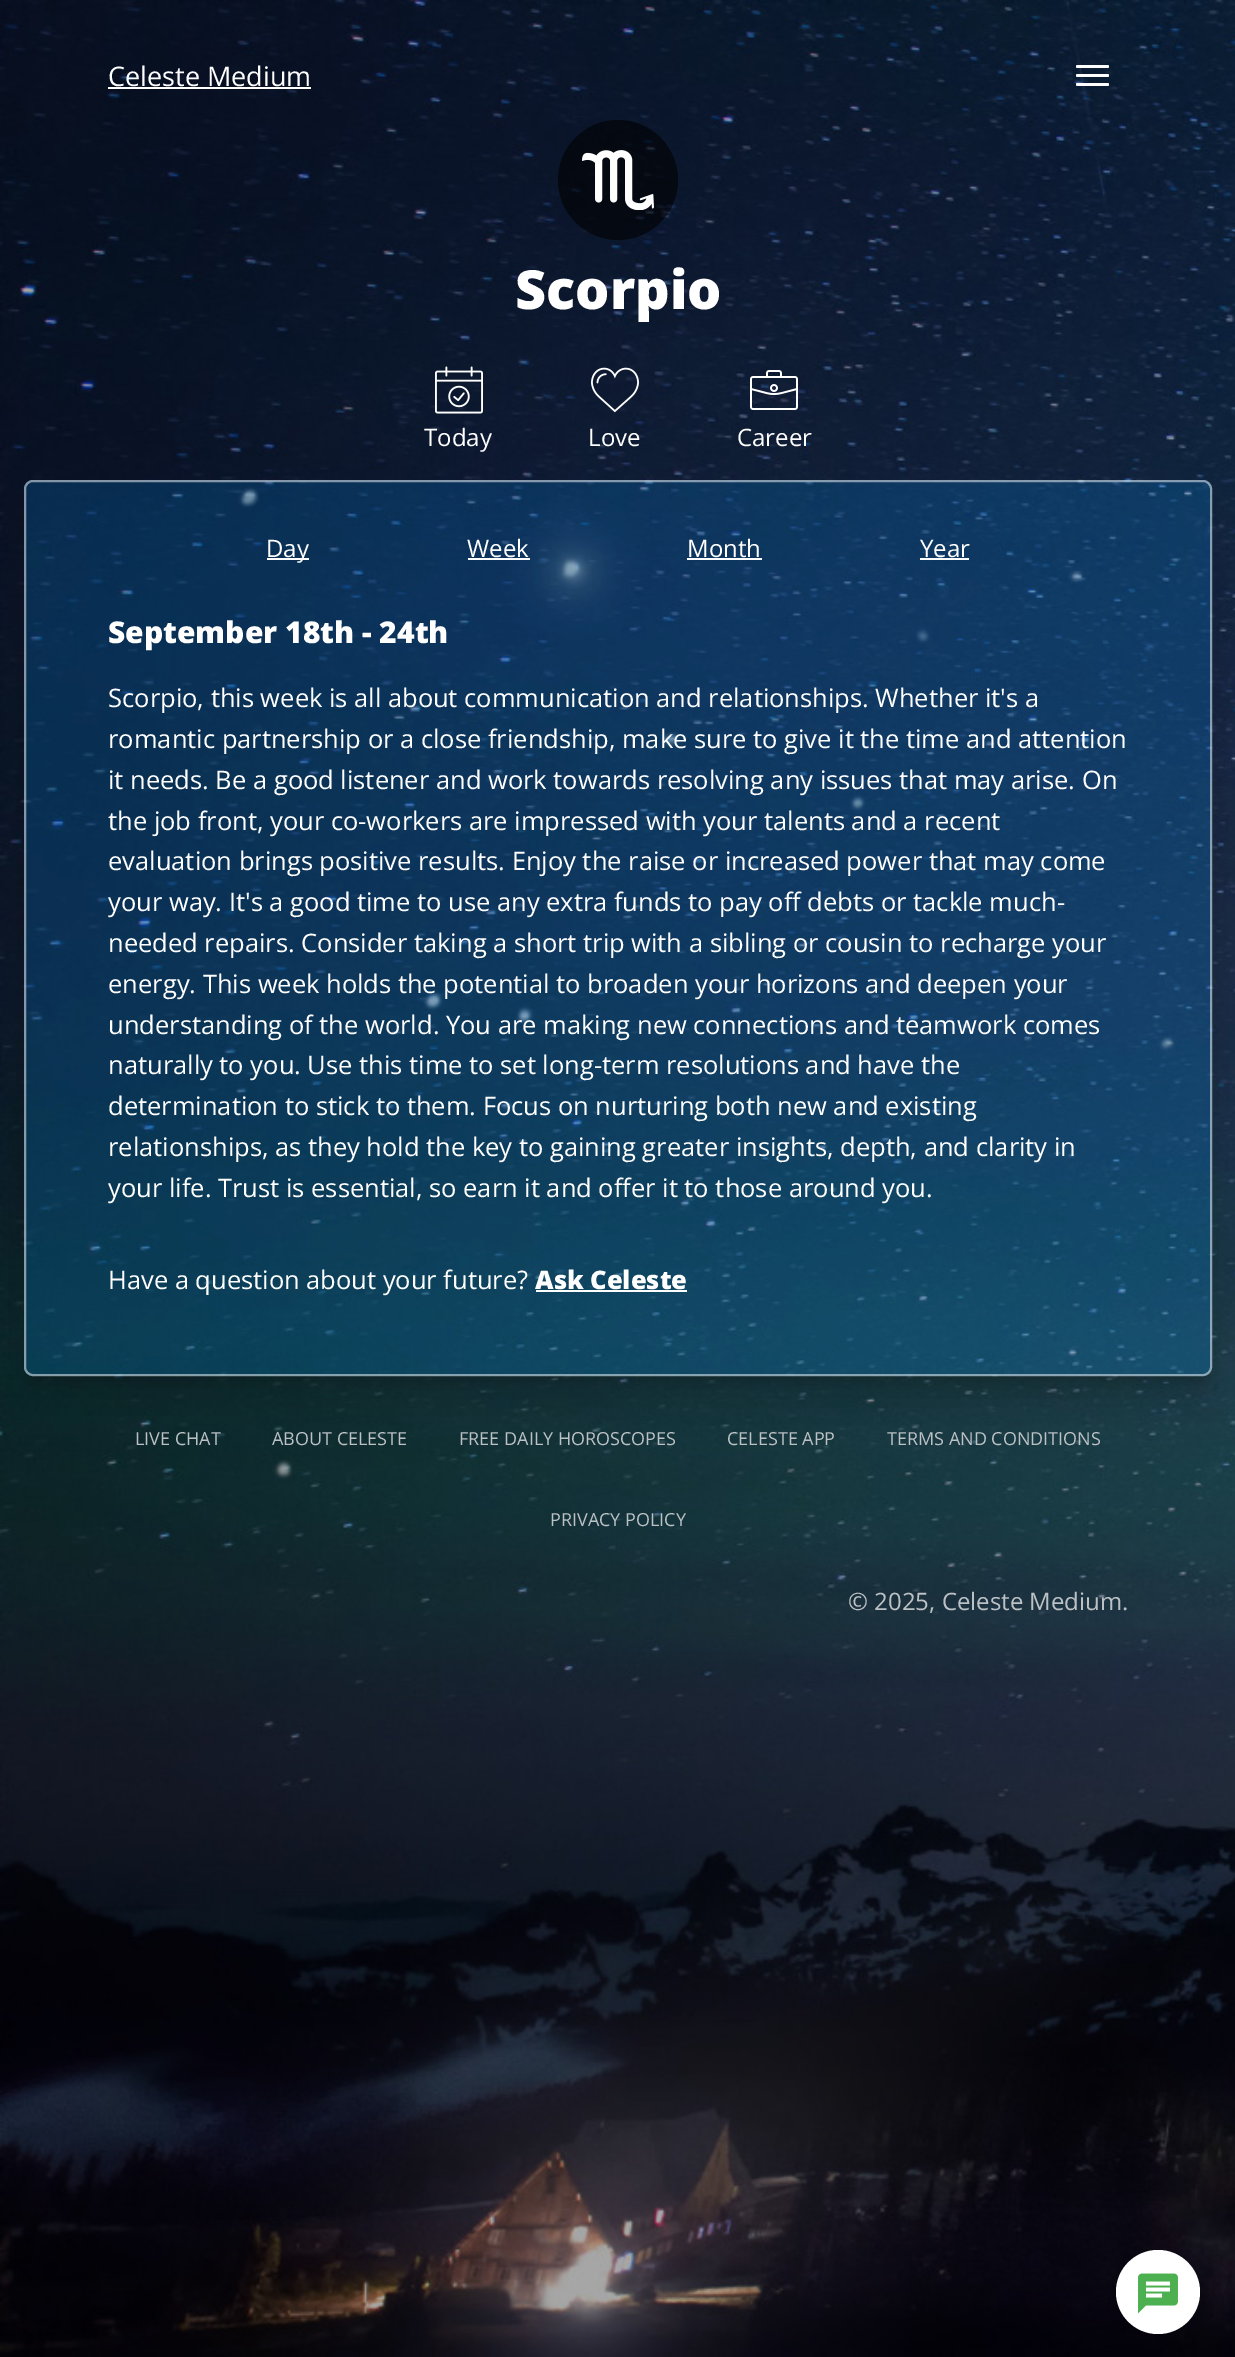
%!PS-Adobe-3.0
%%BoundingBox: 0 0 1235 2357
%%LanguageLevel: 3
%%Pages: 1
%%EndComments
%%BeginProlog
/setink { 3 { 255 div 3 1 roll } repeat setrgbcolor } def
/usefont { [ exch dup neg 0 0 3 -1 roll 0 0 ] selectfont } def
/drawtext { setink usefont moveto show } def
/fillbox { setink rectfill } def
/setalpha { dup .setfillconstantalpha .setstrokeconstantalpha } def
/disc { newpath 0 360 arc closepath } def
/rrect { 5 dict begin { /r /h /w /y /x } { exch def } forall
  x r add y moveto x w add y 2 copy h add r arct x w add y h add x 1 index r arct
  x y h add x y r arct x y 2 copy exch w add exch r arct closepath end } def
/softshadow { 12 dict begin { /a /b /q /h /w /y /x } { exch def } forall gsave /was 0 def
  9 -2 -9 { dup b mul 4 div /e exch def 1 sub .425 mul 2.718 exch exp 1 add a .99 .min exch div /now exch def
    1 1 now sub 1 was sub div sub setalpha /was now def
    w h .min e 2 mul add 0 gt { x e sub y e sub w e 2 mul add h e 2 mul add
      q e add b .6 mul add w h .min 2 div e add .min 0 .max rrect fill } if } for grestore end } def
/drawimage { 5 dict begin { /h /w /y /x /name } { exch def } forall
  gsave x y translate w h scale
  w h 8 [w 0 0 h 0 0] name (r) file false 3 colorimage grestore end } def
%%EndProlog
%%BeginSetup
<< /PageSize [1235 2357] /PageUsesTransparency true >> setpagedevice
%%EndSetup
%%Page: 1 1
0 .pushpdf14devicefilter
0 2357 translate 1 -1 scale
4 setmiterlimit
0 0 1235 2357 255 255 255 fillbox
(assets/img1.rgb) 0 0 1235 2357 drawimage
(Celeste Medium) 108 86 /OpenSans-Regular 27 255 255 255 drawtext
108 87 203 2 255 255 255 fillbox
1076 65 33 3 1.5 rrect fill
1076 74 33 3 1.5 rrect fill
1076 83 33 3 1.5 rrect fill
0.6 setalpha
0 0 0 setink
618 180 60 disc fill
1 setalpha
(assets/img2.rgb) 582 150 72 60 drawimage
(Scorpio) 515 309 /OpenSans-ExtraBold 54 255 255 255 drawtext
(assets/img3.rgb) 435 366 48 48 drawimage
(Today) 424 446 /OpenSans-Regular 24 255 255 255 drawtext
(assets/img4.rgb) 591 367 48 46 drawimage
(Love) 588 446 /OpenSans-Regular 24 255 255 255 drawtext
(assets/img5.rgb) 750 370 48 40 drawimage
(Career) 737 446 /OpenSans-Regular 24 255 255 255 drawtext
gsave
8 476 moveto 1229 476 lineto 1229 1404 lineto 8 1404 lineto closepath 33 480 moveto 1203 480 lineto 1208 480 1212 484 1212 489 curveto 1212 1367 lineto 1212 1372 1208 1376 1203 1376 curveto 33 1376 lineto 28 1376 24 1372 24 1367 curveto 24 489 lineto 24 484 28 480 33 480 curveto closepath eoclip newpath
0 0 0 setink
32 500 1173 880 1.5 7.5 0.2 softshadow
grestore
gsave
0 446 moveto 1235 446 lineto 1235 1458 lineto 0 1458 lineto closepath 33 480 moveto 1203 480 lineto 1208 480 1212 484 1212 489 curveto 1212 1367 lineto 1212 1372 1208 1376 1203 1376 curveto 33 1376 lineto 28 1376 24 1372 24 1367 curveto 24 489 lineto 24 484 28 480 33 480 curveto closepath eoclip newpath
0 0 0 setink
21 501 1194 902 12 18 0.14 softshadow
grestore
0.2 setalpha
0 153 255 setink
24 480 1188 896 9 rrect fill
0.5 setalpha
255 255 255 setink
2 setlinewidth
25 481 1186 894 8 rrect stroke
1 setalpha
267 558 42 2 255 255 255 fillbox
(Day) 266 557 /OpenSans-Regular 24 255 255 255 drawtext
(Week) 467 557 /OpenSans-Regular 24 255 255 255 drawtext
468 558 62 2 255 255 255 fillbox
(Month) 687 557 /OpenSans-Regular 24 255 255 255 drawtext
687 558 75 2 255 255 255 fillbox
(Year) 920 557 /OpenSans-Regular 24 255 255 255 drawtext
920 558 49 2 255 255 255 fillbox
(September 18th - 24th) 108 643 /OpenSans-ExtraBold 30 255 255 255 drawtext
(Scorpio, this week is all about communication and relationships. Whether it's a) 108 707 /OpenSans-Regular 25.5 255 255 255 drawtext
(romantic partnership or a close friendship, make sure to give it the time and attention) 108 748 /OpenSans-Regular 25.5 255 255 255 drawtext
(it needs. Be a good listener and work towards resolving any issues that may arise. On) 108 789 /OpenSans-Regular 25.5 255 255 255 drawtext
(the job front, your co-workers are impressed with your talents and a recent) 108 830 /OpenSans-Regular 25.5 255 255 255 drawtext
(evaluation brings positive results. Enjoy the raise or increased power that may come) 108 870 /OpenSans-Regular 25.5 255 255 255 drawtext
(your way. It's a good time to use any extra funds to pay off debts or tackle much-) 108 911 /OpenSans-Regular 25.5 255 255 255 drawtext
(needed repairs. Consider taking a short trip with a sibling or cousin to recharge your) 108 952 /OpenSans-Regular 25.5 255 255 255 drawtext
(energy. This week holds the potential to broaden your horizons and deepen your) 108 993 /OpenSans-Regular 25.5 255 255 255 drawtext
(understanding of the world. You are making new connections and teamwork comes) 108 1034 /OpenSans-Regular 25.5 255 255 255 drawtext
(naturally to you. Use this time to set long-term resolutions and have the) 108 1074 /OpenSans-Regular 25.5 255 255 255 drawtext
(determination to stick to them. Focus on nurturing both new and existing) 108 1115 /OpenSans-Regular 25.5 255 255 255 drawtext
(relationships, as they hold the key to gaining greater insights, depth, and clarity in) 108 1156 /OpenSans-Regular 25.5 255 255 255 drawtext
(your life. Trust is essential, so earn it and offer it to those around you.) 108 1197 /OpenSans-Regular 25.5 255 255 255 drawtext
(Have a question about your future?) 108 1289 /OpenSans-Regular 25.5 255 255 255 drawtext
(Ask Celeste) 535 1289 /OpenSans-ExtraBold 25.5 255 255 255 drawtext
536 1290 151 2 255 255 255 fillbox
(LIVE CHAT) 135 1445 /OpenSans-Regular 18 187 193 197 drawtext
(ABOUT CELESTE) 272 1445 /OpenSans-Regular 18 187 193 197 drawtext
(FREE DAILY HOROSCOPES) 459 1445 /OpenSans-Regular 18 187 193 197 drawtext
(CELESTE APP) 727 1445 /OpenSans-Regular 18 187 193 197 drawtext
(TERMS AND CONDITIONS) 887 1445 /OpenSans-Regular 18 187 193 197 drawtext
(PRIVACY POLICY) 550 1526 /OpenSans-Regular 18 187 193 197 drawtext
(© 2025, Celeste Medium.) 848 1610 /OpenSans-Regular 24 187 193 197 drawtext
255 255 255 setink
1158 2292 42 disc fill
(assets/img6.rgb) 1138 2273 40 41 drawimage
.poppdf14devicefilter showpage
%%EOF
